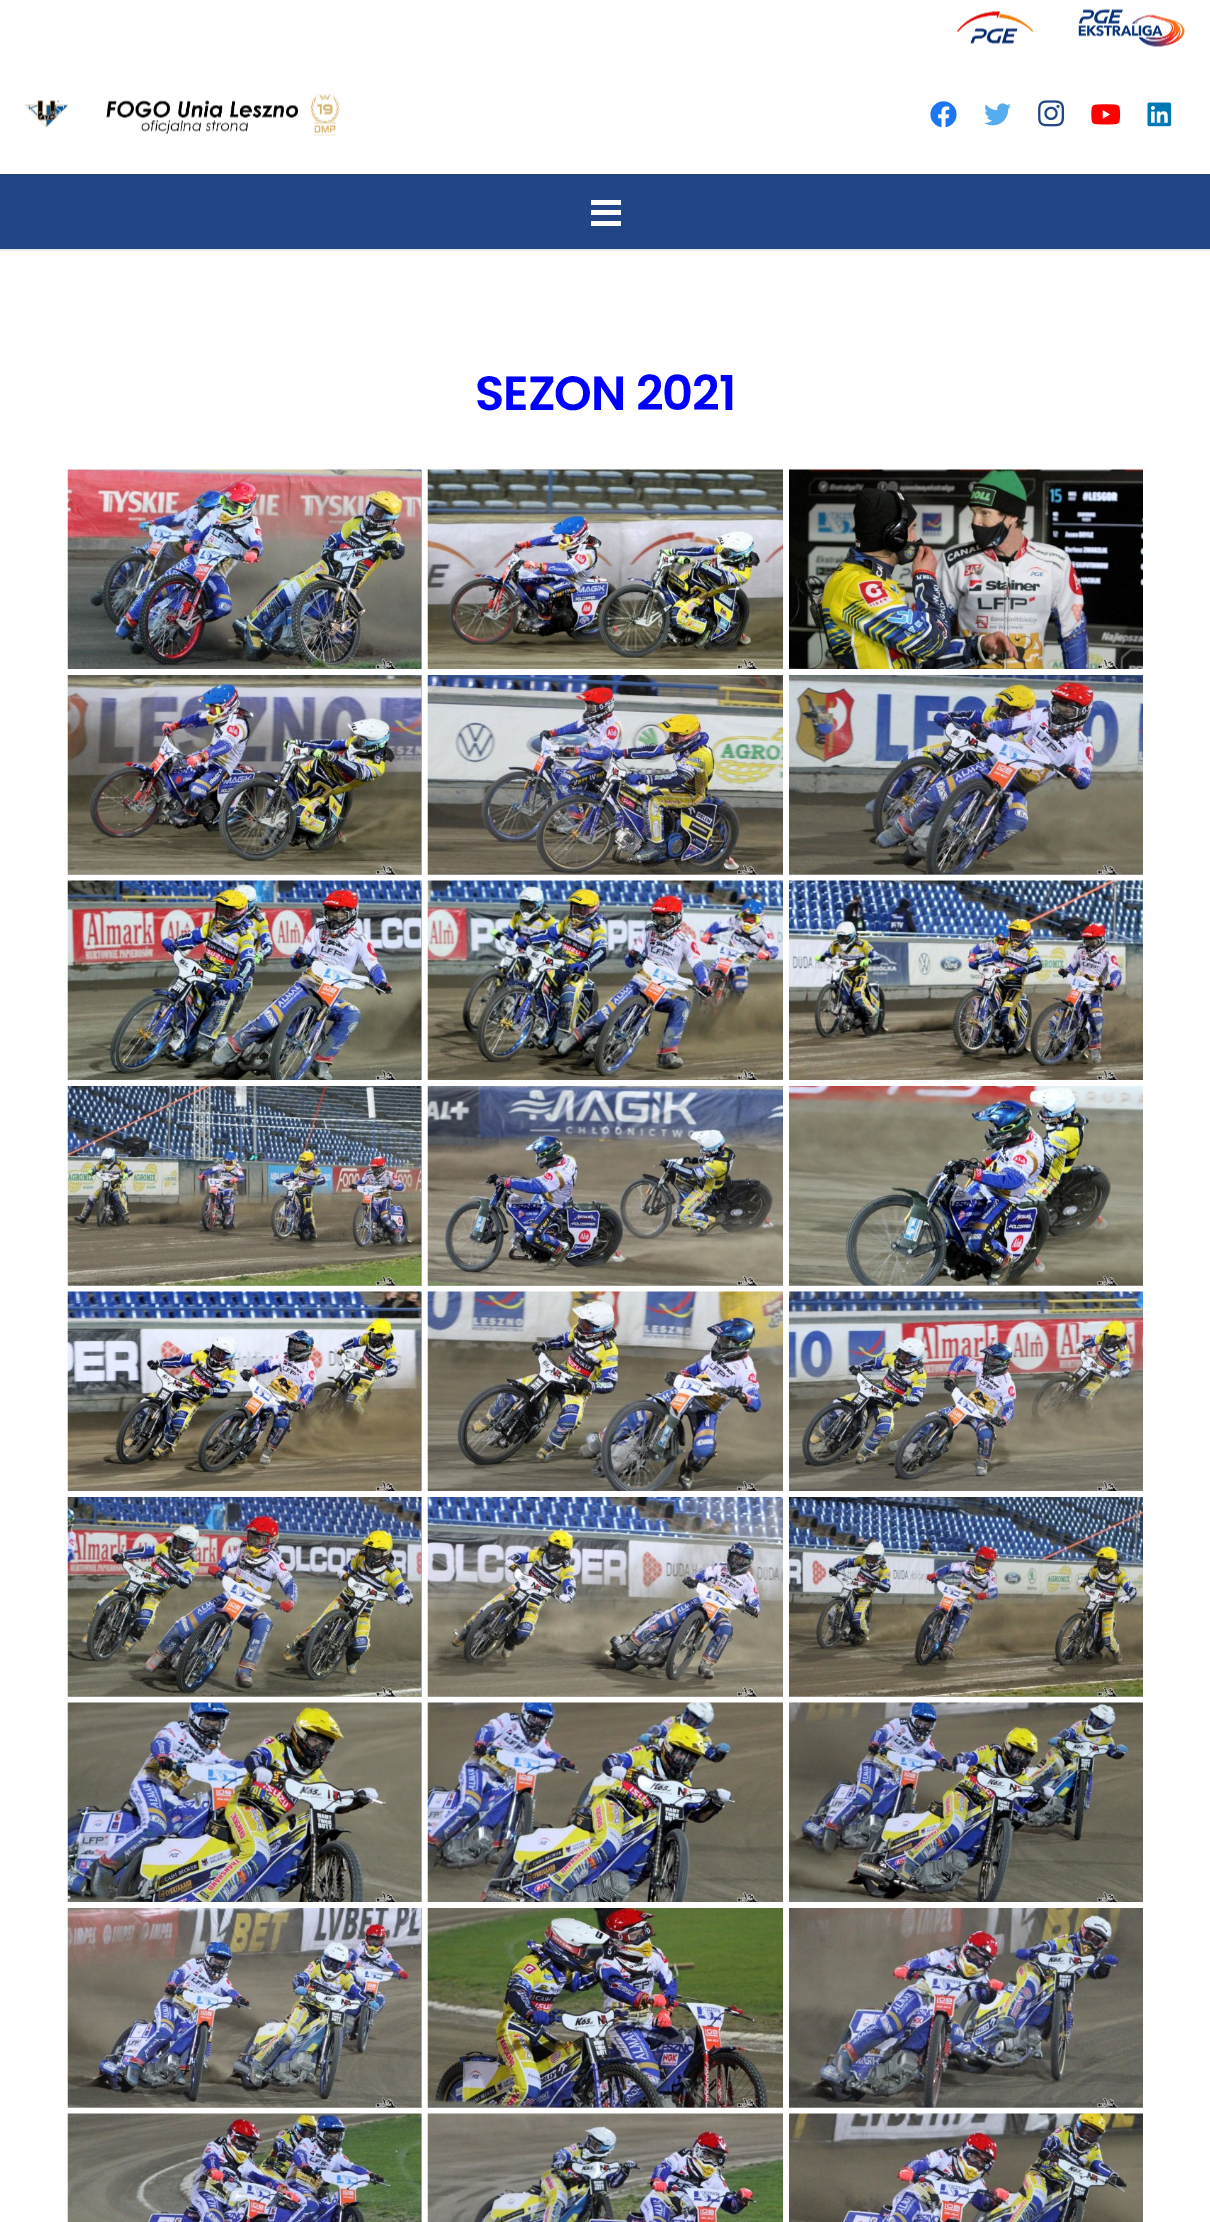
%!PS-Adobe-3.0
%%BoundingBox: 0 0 1210 2222
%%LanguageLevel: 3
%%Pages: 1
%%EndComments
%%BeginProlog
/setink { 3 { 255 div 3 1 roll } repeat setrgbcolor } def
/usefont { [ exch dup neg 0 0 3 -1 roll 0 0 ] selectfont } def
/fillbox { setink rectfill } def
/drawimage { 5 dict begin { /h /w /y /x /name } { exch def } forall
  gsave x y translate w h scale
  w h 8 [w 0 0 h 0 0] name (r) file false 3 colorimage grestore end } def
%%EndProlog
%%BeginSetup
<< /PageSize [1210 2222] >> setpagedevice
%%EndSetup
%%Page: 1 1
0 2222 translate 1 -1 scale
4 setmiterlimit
0 0 1210 2222 255 255 255 fillbox
(assets/img1.rgb) 956 11 78 33 drawimage
(assets/img2.rgb) 1078 9 107 38 drawimage
(assets/img3.rgb) 24 100 45 28 drawimage
(assets/img4.rgb) 106 93 234 43 drawimage
(assets/img5.rgb) 930 101 27 27 drawimage
(assets/img6.rgb) 984 103 27 23 drawimage
(assets/img7.rgb) 1038 100 27 27 drawimage
(assets/img8.rgb) 1091 104 30 21 drawimage
(assets/img9.rgb) 1147 102 25 25 drawimage
235 235 235 setink
0 249 moveto 0 251 lineto 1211 251 lineto 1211 176 lineto 1210 176 lineto 1210 249 lineto closepath fill
0 174 1210 75 34 69 133 fillbox
591 210 30 5 255 255 255 fillbox
591 200 30 5 255 255 255 fillbox
591 221 30 5 255 255 255 fillbox
/Poppins-SemiBold 48 usefont
0 0 255 setink
475 410 moveto -1 0 (SEZON 2021) ashow
421 470 1 199 179 179 179 fillbox
(assets/img10.rgb) 67 469 355 200 drawimage
(assets/img11.rgb) 427 469 356 200 drawimage
(assets/img12.rgb) 789 469 354 200 drawimage
68 675 354 200 179 179 179 fillbox
(assets/img13.rgb) 67 675 355 200 drawimage
428 874 355 1 179 179 179 fillbox
(assets/img14.rgb) 427 675 356 200 drawimage
789 874 354 1 179 179 179 fillbox
(assets/img15.rgb) 789 675 354 200 drawimage
421 881 1 199 179 179 179 fillbox
(assets/img16.rgb) 67 880 355 200 drawimage
(assets/img17.rgb) 427 880 356 200 drawimage
(assets/img18.rgb) 789 880 354 200 drawimage
68 1086 354 200 179 179 179 fillbox
(assets/img19.rgb) 67 1086 355 200 drawimage
428 1285 355 1 179 179 179 fillbox
(assets/img20.rgb) 427 1086 356 200 drawimage
789 1285 354 1 179 179 179 fillbox
(assets/img21.rgb) 789 1086 354 200 drawimage
421 1292 1 199 179 179 179 fillbox
(assets/img22.rgb) 67 1291 355 200 drawimage
(assets/img23.rgb) 427 1291 356 200 drawimage
(assets/img24.rgb) 789 1291 354 200 drawimage
68 1497 354 200 179 179 179 fillbox
(assets/img25.rgb) 67 1497 355 200 drawimage
428 1696 355 1 179 179 179 fillbox
(assets/img26.rgb) 427 1497 356 200 drawimage
789 1696 354 1 179 179 179 fillbox
(assets/img27.rgb) 789 1497 354 200 drawimage
421 1703 1 199 179 179 179 fillbox
(assets/img28.rgb) 67 1702 355 200 drawimage
(assets/img29.rgb) 427 1702 356 200 drawimage
(assets/img30.rgb) 789 1702 354 200 drawimage
68 1908 354 200 179 179 179 fillbox
(assets/img31.rgb) 67 1908 355 200 drawimage
428 2107 355 1 179 179 179 fillbox
(assets/img32.rgb) 427 1908 356 200 drawimage
789 2107 354 1 179 179 179 fillbox
(assets/img33.rgb) 789 1908 354 200 drawimage
421 2114 1 108 179 179 179 fillbox
(assets/img34.rgb) 67 2113 355 109 drawimage
(assets/img35.rgb) 427 2113 356 109 drawimage
(assets/img36.rgb) 789 2113 354 109 drawimage
showpage
%%EOF
